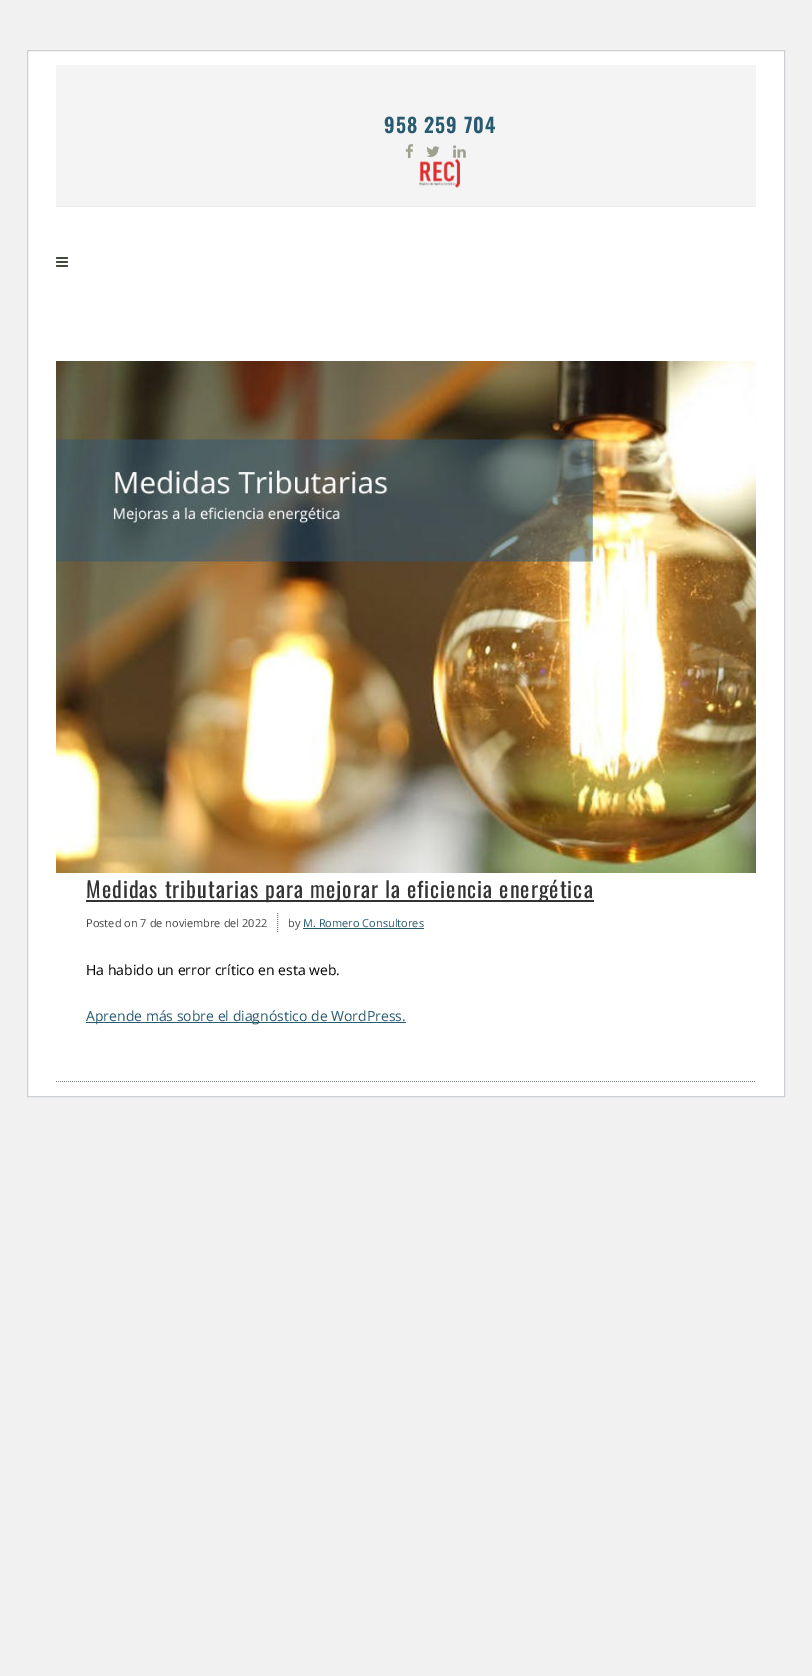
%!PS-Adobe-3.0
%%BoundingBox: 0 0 812 1676
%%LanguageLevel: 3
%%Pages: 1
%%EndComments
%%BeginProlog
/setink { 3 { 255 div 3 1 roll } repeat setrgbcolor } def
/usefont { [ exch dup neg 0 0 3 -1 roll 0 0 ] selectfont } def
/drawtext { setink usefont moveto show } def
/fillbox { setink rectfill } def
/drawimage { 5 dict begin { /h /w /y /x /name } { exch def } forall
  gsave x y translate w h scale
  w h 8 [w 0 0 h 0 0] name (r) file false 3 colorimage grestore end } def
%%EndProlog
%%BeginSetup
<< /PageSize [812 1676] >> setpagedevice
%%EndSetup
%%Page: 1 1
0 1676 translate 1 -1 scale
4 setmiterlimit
0 0 812 1676 241 241 241 fillbox
255 255 255 setink
27.5 50.5 moveto 784.5 50.5 lineto 784.5 1096.5 lineto 27.5 1096.5 lineto closepath gsave fill grestore
204 208 212 setink
stroke
56 65 700 141 244 244 244 fillbox
56 206 700 1 237 237 237 fillbox
/Oswald-SemiBold 20 usefont
40 90 112 setink
384 133 moveto 1 0 (958 259 704) ashow
(assets/img1.rgb) 405 144 8 15 drawimage
(assets/img2.rgb) 426 146 14 11 drawimage
(assets/img3.rgb) 453 145 13 13 drawimage
(assets/img4.rgb) 419 158 41 30 drawimage
(assets/img5.rgb) 56 257 12 10 drawimage
gsave
56 65 700 1017 rectclip
116 121 123 setink
[1 1] 0 setdash
56 1081.5 moveto 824 1081.5 lineto stroke
grestore
(assets/img6.rgb) 56 361 700 512 drawimage
86 900 508 2 51 51 51 fillbox
/Oswald-Regular 22 usefont
86 898 moveto 1 0 (Medidas tributarias para mejorar la eficiencia energética) ashow
116 121 123 setink
[1 1] 0 setdash
277.5 913 moveto 277.5 933 lineto stroke
(Posted on 7 de noviembre del 2022) 86 927 /OpenSans-Regular 11 68 68 68 drawtext
(by) 288 927 /OpenSans-Regular 11 68 68 68 drawtext
(M. Romero Consultores) 303 927 /OpenSans-Regular 11 40 90 112 drawtext
303 928 121 1 40 90 112 fillbox
(Ha habido un error crítico en esta web.) 86 975 /OpenSans-Regular 14 0 0 0 drawtext
86 1022 320 1 40 90 112 fillbox
(Aprende más sobre el diagnóstico de WordPress.) 86 1021 /OpenSans-Regular 14 40 90 112 drawtext
showpage
%%EOF
